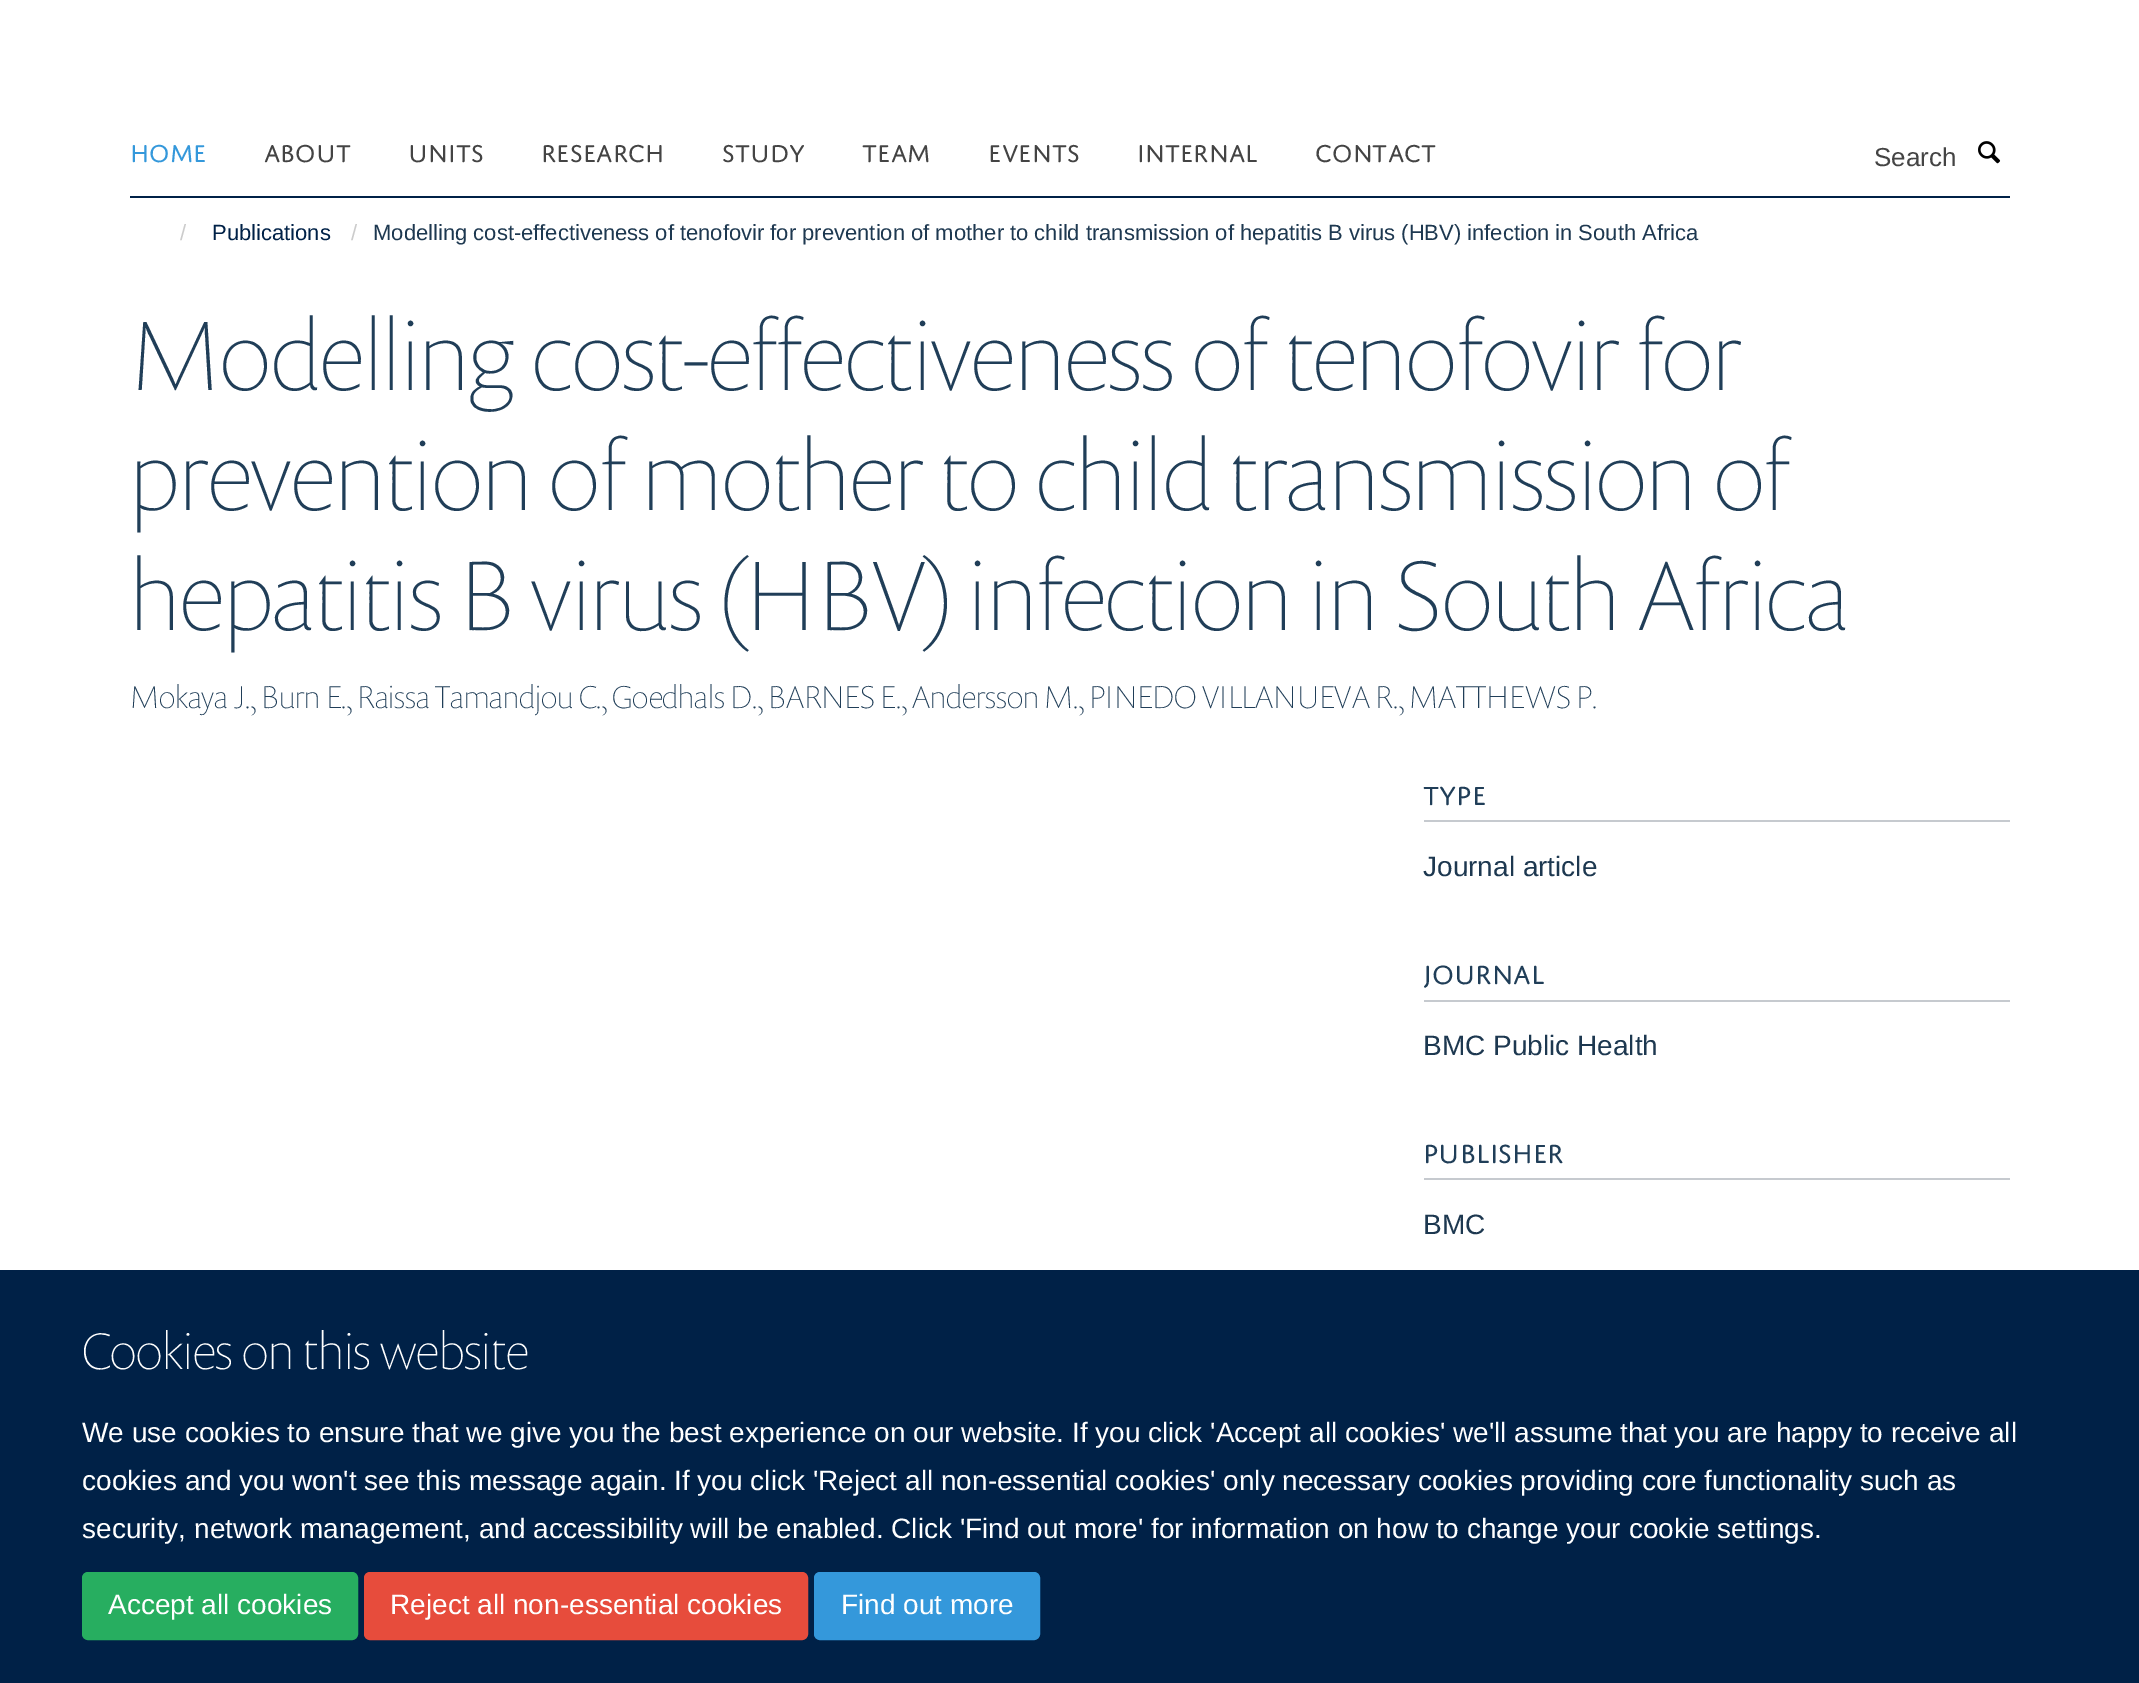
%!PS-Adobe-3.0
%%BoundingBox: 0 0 2139 1683
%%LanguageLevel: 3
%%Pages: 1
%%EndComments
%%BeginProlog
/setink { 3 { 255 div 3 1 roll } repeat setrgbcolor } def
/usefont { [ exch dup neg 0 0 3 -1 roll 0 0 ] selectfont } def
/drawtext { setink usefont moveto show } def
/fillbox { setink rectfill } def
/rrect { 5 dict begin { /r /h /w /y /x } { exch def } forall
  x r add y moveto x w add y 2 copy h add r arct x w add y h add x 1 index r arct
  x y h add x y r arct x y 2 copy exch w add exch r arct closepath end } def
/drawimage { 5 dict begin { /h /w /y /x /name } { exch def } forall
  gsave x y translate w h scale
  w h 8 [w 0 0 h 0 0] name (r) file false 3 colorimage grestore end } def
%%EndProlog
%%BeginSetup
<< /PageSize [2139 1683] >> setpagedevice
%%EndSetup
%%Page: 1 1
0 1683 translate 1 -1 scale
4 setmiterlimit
0 0 2139 1683 255 255 255 fillbox
130 196 1880 2 0 33 71 fillbox
(HOME) 130 162 /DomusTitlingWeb-Regular 26 52 152 219 drawtext
(ABOUT) 264 162 /DomusTitlingWeb-Regular 26 68 68 68 drawtext
(UNITS) 408 162 /DomusTitlingWeb-Regular 26 68 68 68 drawtext
(RESEARCH) 541 162 /DomusTitlingWeb-Regular 26 68 68 68 drawtext
(STUDY) 722 162 /DomusTitlingWeb-Regular 26 68 68 68 drawtext
(TEAM) 862 162 /DomusTitlingWeb-Regular 26 68 68 68 drawtext
(EVENTS) 988 162 /DomusTitlingWeb-Regular 26 68 68 68 drawtext
(INTERNAL) 1137 162 /DomusTitlingWeb-Regular 26 68 68 68 drawtext
(CONTACT) 1315 162 /DomusTitlingWeb-Regular 26 68 68 68 drawtext
(Search) 1874 166 /LiberationSans-Regular 26 68 68 68 drawtext
(assets/img1.rgb) 1978 141 23 23 drawimage
(/) 180 240 /LiberationSans-Regular 22 204 204 204 drawtext
(Publications) 212 240 /LiberationSans-Regular 22 0 33 71 drawtext
(/) 351 240 /LiberationSans-Regular 22 204 204 204 drawtext
(Modelling cost-effectiveness of tenofovir for prevention of mother to child transmission of hepatitis B virus \(HBV\) infection in South Africa) 373 240 /LiberationSans-Regular 22 29 56 80 drawtext
(Modelling cost-effectiveness of tenofovir for) 130 390 /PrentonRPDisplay-Thin 100 32 62 88 drawtext
(prevention of mother to child transmission of) 130 510 /PrentonRPDisplay-Thin 100 32 62 88 drawtext
(hepatitis B virus \(HBV\) infection in South Africa) 130 630 /PrentonRPDisplay-Thin 100 32 62 88 drawtext
(Mokaya J., Burn E., Raissa Tamandjou C., Goedhals D., BARNES E., Andersson M., PINEDO VILLANUEVA R., MATTHEWS P.) 130 708 /PrentonRPDisplay-Thin 32 32 62 88 drawtext
1424 820 586 2 198 202 207 fillbox
(TYPE) 1423 805 /DomusTitlingWeb-Regular 28 32 62 88 drawtext
(Journal article) 1423 876 /LiberationSans-Regular 28 29 56 80 drawtext
1424 1000 586 2 198 202 207 fillbox
(JOURNAL) 1423 984 /DomusTitlingWeb-Regular 28 32 62 88 drawtext
(BMC Public Health) 1423 1055 /LiberationSans-Regular 28 29 56 80 drawtext
1424 1178 586 2 198 202 207 fillbox
(PUBLISHER) 1423 1163 /DomusTitlingWeb-Regular 28 32 62 88 drawtext
(BMC) 1423 1234 /LiberationSans-Regular 28 29 56 80 drawtext
0 1270 2139 413 0 33 71 fillbox
(Cookies on this website) 82 1369 /PrentonRPDisplay-Thin 52 255 255 255 drawtext
(We use cookies to ensure that we give you the best experience on our website. If you click 'Accept all cookies' we'll assume that you are happy to receive all) 82 1442 /LiberationSans-Regular 28 255 255 255 drawtext
(cookies and you won't see this message again. If you click 'Reject all non-essential cookies' only necessary cookies providing core functionality such as) 82 1490 /LiberationSans-Regular 28 255 255 255 drawtext
(security, network management, and accessibility will be enabled. Click 'Find out more' for information on how to change your cookie settings.) 82 1538 /LiberationSans-Regular 28 255 255 255 drawtext
39 174 96 setink
83 1573 274 66 5 rrect gsave fill grestore
2 setlinewidth
stroke
(Accept all cookies) 108 1614 /LiberationSans-Regular 28 255 255 255 drawtext
231 76 60 setink
365 1573 442 66 5 rrect gsave fill grestore
stroke
(Reject all non-essential cookies) 390 1614 /LiberationSans-Regular 28 255 255 255 drawtext
52 152 219 setink
815 1573 224 66 5 rrect gsave fill grestore
stroke
(Find out more) 841 1614 /LiberationSans-Regular 28 255 255 255 drawtext
showpage
%%EOF
